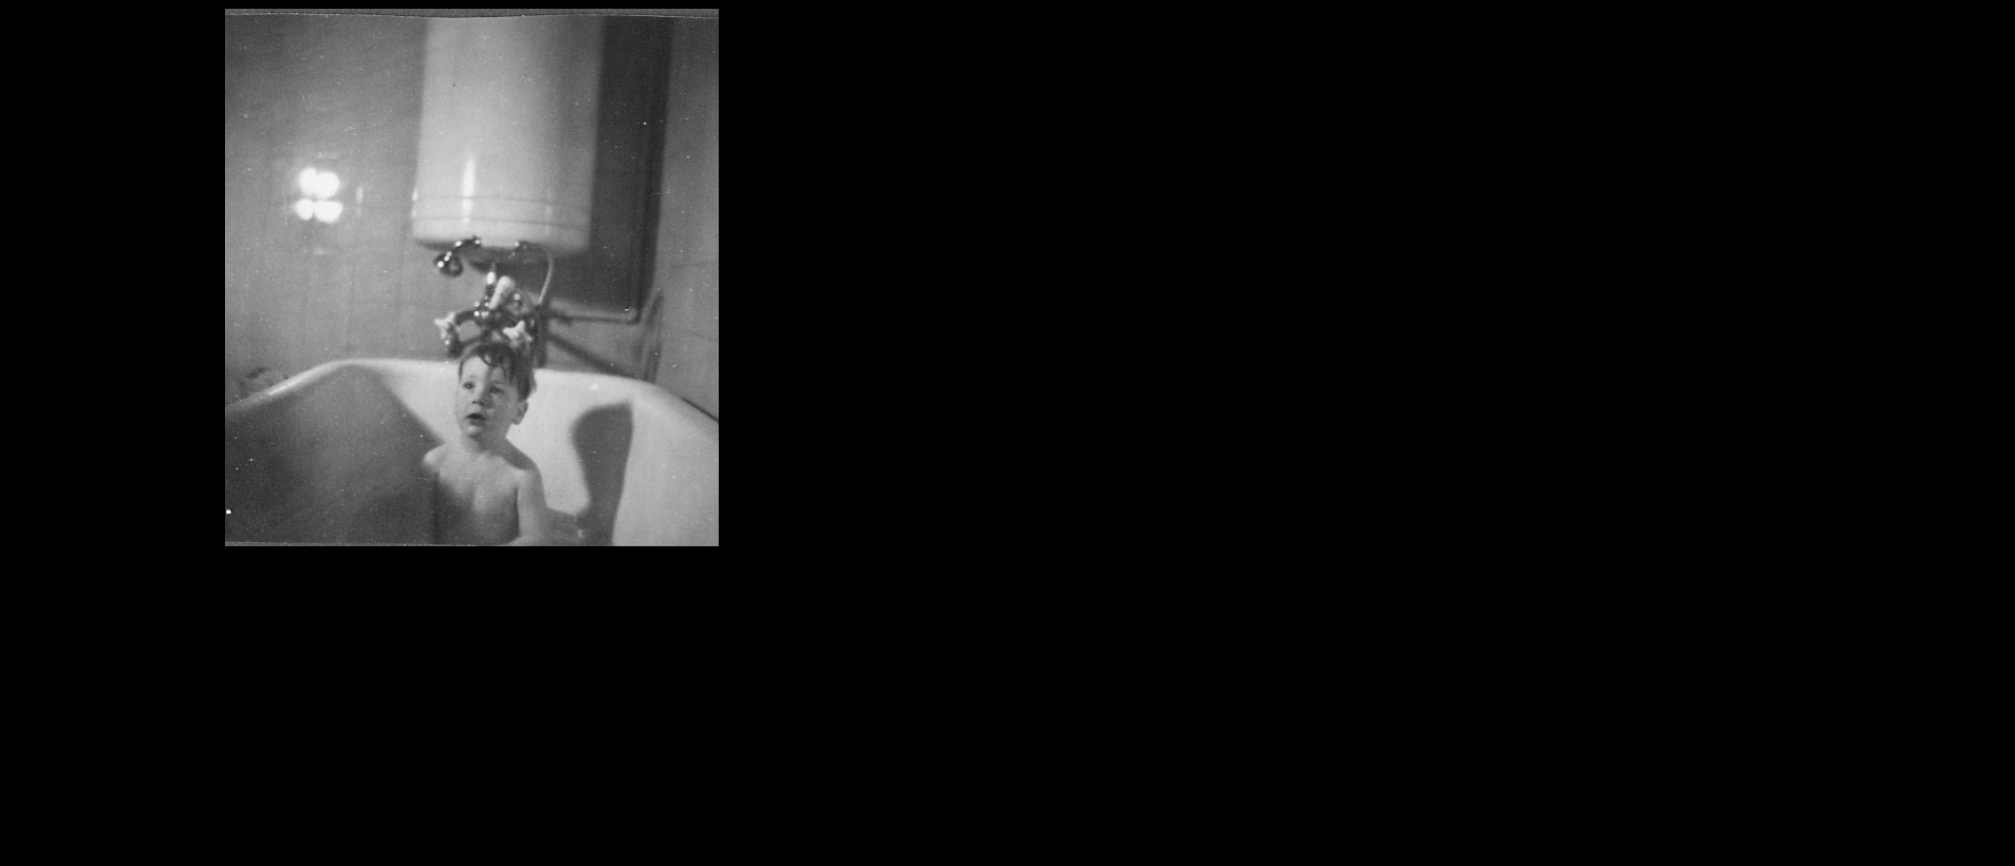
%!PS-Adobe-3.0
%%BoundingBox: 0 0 2015 866
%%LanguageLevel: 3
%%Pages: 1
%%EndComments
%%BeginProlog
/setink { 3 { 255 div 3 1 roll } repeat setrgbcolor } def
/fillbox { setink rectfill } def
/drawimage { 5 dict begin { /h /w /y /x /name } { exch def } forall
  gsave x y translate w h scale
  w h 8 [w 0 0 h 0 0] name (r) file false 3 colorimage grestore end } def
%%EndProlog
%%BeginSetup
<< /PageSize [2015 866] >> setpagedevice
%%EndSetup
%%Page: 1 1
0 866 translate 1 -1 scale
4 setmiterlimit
0 0 2015 866 0 0 0 fillbox
(assets/img1.rgb) 225 8 494 539 drawimage
showpage
%%EOF
